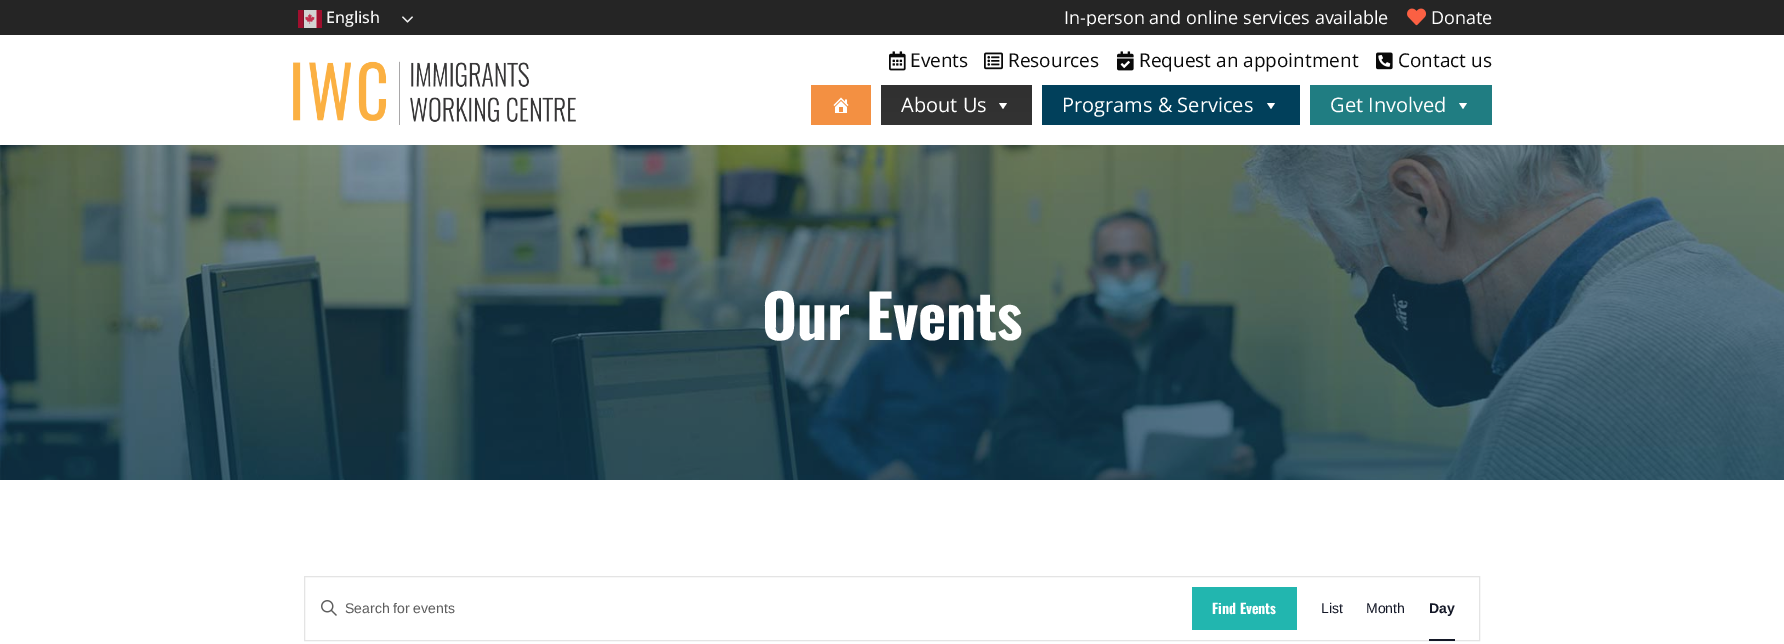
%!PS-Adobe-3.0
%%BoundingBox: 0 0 1784 644
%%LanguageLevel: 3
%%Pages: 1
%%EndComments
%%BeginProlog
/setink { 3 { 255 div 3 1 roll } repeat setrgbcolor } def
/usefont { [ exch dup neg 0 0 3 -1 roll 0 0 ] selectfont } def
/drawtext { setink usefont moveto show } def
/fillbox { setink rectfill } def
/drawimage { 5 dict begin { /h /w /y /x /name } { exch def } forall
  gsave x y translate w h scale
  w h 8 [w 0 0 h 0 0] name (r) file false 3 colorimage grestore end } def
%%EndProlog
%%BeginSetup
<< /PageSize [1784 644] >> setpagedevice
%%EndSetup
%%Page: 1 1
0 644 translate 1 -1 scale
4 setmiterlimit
0 0 1784 644 255 255 255 fillbox
0 0 1784 35 37 37 37 fillbox
(assets/img1.rgb) 298 10 24 18 drawimage
(English) 326 23 /OpenSans-Medium 16 247 247 247 drawtext
(assets/img2.rgb) 402 16 11 7 drawimage
gsave
592 7 900 19 rectclip
(In-person and online services available) 1064 24 /OpenSans-Regular 18 255 255 255 drawtext
grestore
(assets/img3.rgb) 1407 8 19 18 drawimage
(Donate) 1431 24 /OpenSans-Regular 18 255 255 255 drawtext
(assets/img4.rgb) 293 61 283 64 drawimage
(assets/img5.rgb) 889 51 17 20 drawimage
(Events) 910 67 /OpenSans-Regular 19 9 9 9 drawtext
(assets/img6.rgb) 984 52 19 18 drawimage
(Resources) 1008 67 /OpenSans-Regular 19 9 9 9 drawtext
(assets/img7.rgb) 1117 51 17 20 drawimage
(Request an appointment) 1139 67 /OpenSans-Regular 19 9 9 9 drawtext
(assets/img8.rgb) 1376 52 17 18 drawimage
(Contact us) 1398 67 /OpenSans-Regular 19 9 9 9 drawtext
811 85 60 40 243 144 66 fillbox
(assets/img9.rgb) 833 97 16 16 drawimage
gsave 881 85 moveto 1032 85 lineto 1032 125 lineto 881 125 lineto closepath clip newpath
<< /ShadingType 2 /ColorSpace /DeviceRGB /Coords [957 85 957 125] /Extend [true true] /Function << /FunctionType 2 /Domain [0 1] /C0 [0.188 0.188 0.188] /C1 [0.2 0.2 0.2] /N 1 >> >> shfill grestore
(About Us) 901 112 /OpenSans-Regular 20 255 255 255 drawtext
1007 103 moveto 1003 109 lineto 999 103 lineto closepath fill
1042 85 258 40 1 64 91 fillbox
(Programs & Services) 1062 112 /OpenSans-Regular 20 255 255 255 drawtext
1275 103 moveto 1271 109 lineto 1267 103 lineto closepath fill
1310 85 182 40 32 125 130 fillbox
(Get Involved) 1330 112 /OpenSans-Regular 20 255 255 255 drawtext
1467 103 moveto 1463 109 lineto 1459 103 lineto closepath fill
(assets/img10.rgb) 0 145 1784 335 drawimage
(Our Events) 762 340 /Oswald-Bold 60 255 255 255 drawtext
228 228 228 setink
304.5 576.5 1175 64 rectstroke
(assets/img11.rgb) 321 600 16 16 drawimage
(Search for events) 345 613 /LiberationSans-Regular 14 92 92 92 drawtext
1192 587 105 43 34 182 175 fillbox
(Find Events) 1212 614 /Oswald-Bold 14 255 255 255 drawtext
(List) 1321 613 /LiberationSans-Regular 14 20 24 39 drawtext
(Month) 1366 613 /LiberationSans-Regular 14 20 24 39 drawtext
(Day) 1429 613 /LiberationSans-Bold 14 20 24 39 drawtext
1429 639 26 2 20 24 39 fillbox
showpage
%%EOF
